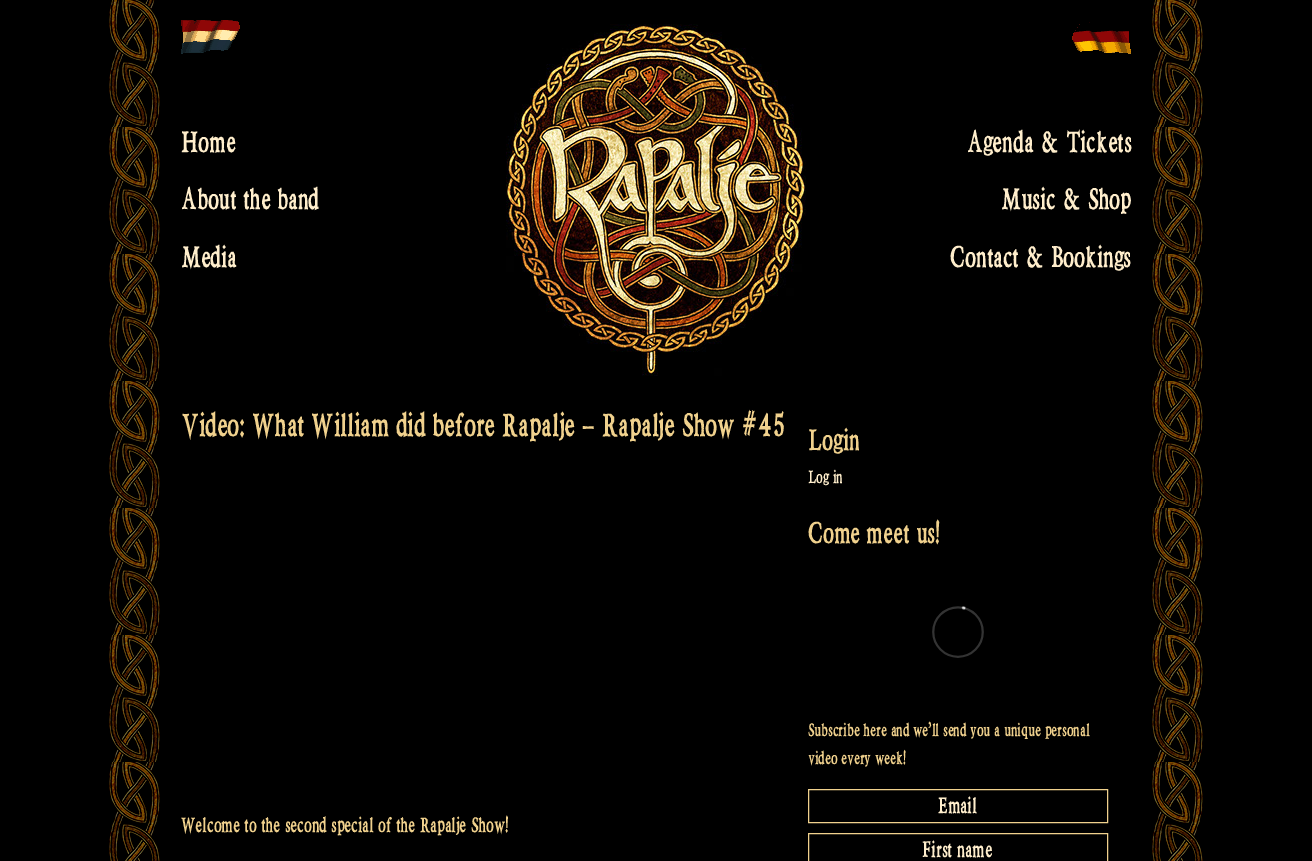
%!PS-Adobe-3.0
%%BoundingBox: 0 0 1312 861
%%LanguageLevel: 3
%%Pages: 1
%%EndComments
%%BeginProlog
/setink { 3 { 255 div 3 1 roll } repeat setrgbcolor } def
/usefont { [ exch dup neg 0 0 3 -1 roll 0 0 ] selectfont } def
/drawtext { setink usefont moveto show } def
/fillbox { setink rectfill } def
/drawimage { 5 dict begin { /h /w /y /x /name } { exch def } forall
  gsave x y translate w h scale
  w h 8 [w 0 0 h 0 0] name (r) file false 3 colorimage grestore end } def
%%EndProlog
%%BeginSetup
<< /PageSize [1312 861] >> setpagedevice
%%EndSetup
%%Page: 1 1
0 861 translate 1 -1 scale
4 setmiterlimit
0 0 1312 861 0 0 0 fillbox
(assets/img1.rgb) 109 0 1094 861 drawimage
(assets/img2.rgb) 181 20 59 34 drawimage
(assets/img3.rgb) 1072 22 59 32 drawimage
(assets/img4.rgb) 506 24 300 352 drawimage
(Home) 181 152 /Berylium-Regular 32 255 238 204 drawtext
(About the band) 181 209 /Berylium-Regular 32 255 238 204 drawtext
(Media) 181 267 /Berylium-Regular 32 255 238 204 drawtext
(Agenda & Tickets) 967 152 /Berylium-Regular 32 255 238 204 drawtext
(Music & Shop) 1001 209 /Berylium-Regular 32 255 238 204 drawtext
(Contact & Bookings) 950 267 /Berylium-Regular 32 255 238 204 drawtext
(Video: What William did before Rapalje – Rapalje Show #45) 181 436 /Berylium-Regular 35 240 209 141 drawtext
(Welcome to the second special of the Rapalje Show!) 181 832 /Berylium-Regular 22.5 240 209 141 drawtext
(Login) 808 450 /Berylium-Regular 32 240 209 141 drawtext
(Log in) 808 483 /Berylium-Regular 19.25 255 238 204 drawtext
(Come meet us!) 808 543 /Berylium-Regular 32 240 209 141 drawtext
(assets/img5.rgb) 932 606 52 52 drawimage
(Subscribe here and we’ll send you a unique personal) 808 736 /Berylium-Regular 19.25 240 209 141 drawtext
(video every week!) 808 764 /Berylium-Regular 19.25 240 209 141 drawtext
808.5 789.5 299 33 rectstroke
(Email) 938 813 /Berylium-Regular 24 255 238 204 drawtext
240 209 141 setink
808.5 833.5 299 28 rectstroke
(First name) 922 857 /Berylium-Regular 24 255 238 204 drawtext
showpage
%%EOF
